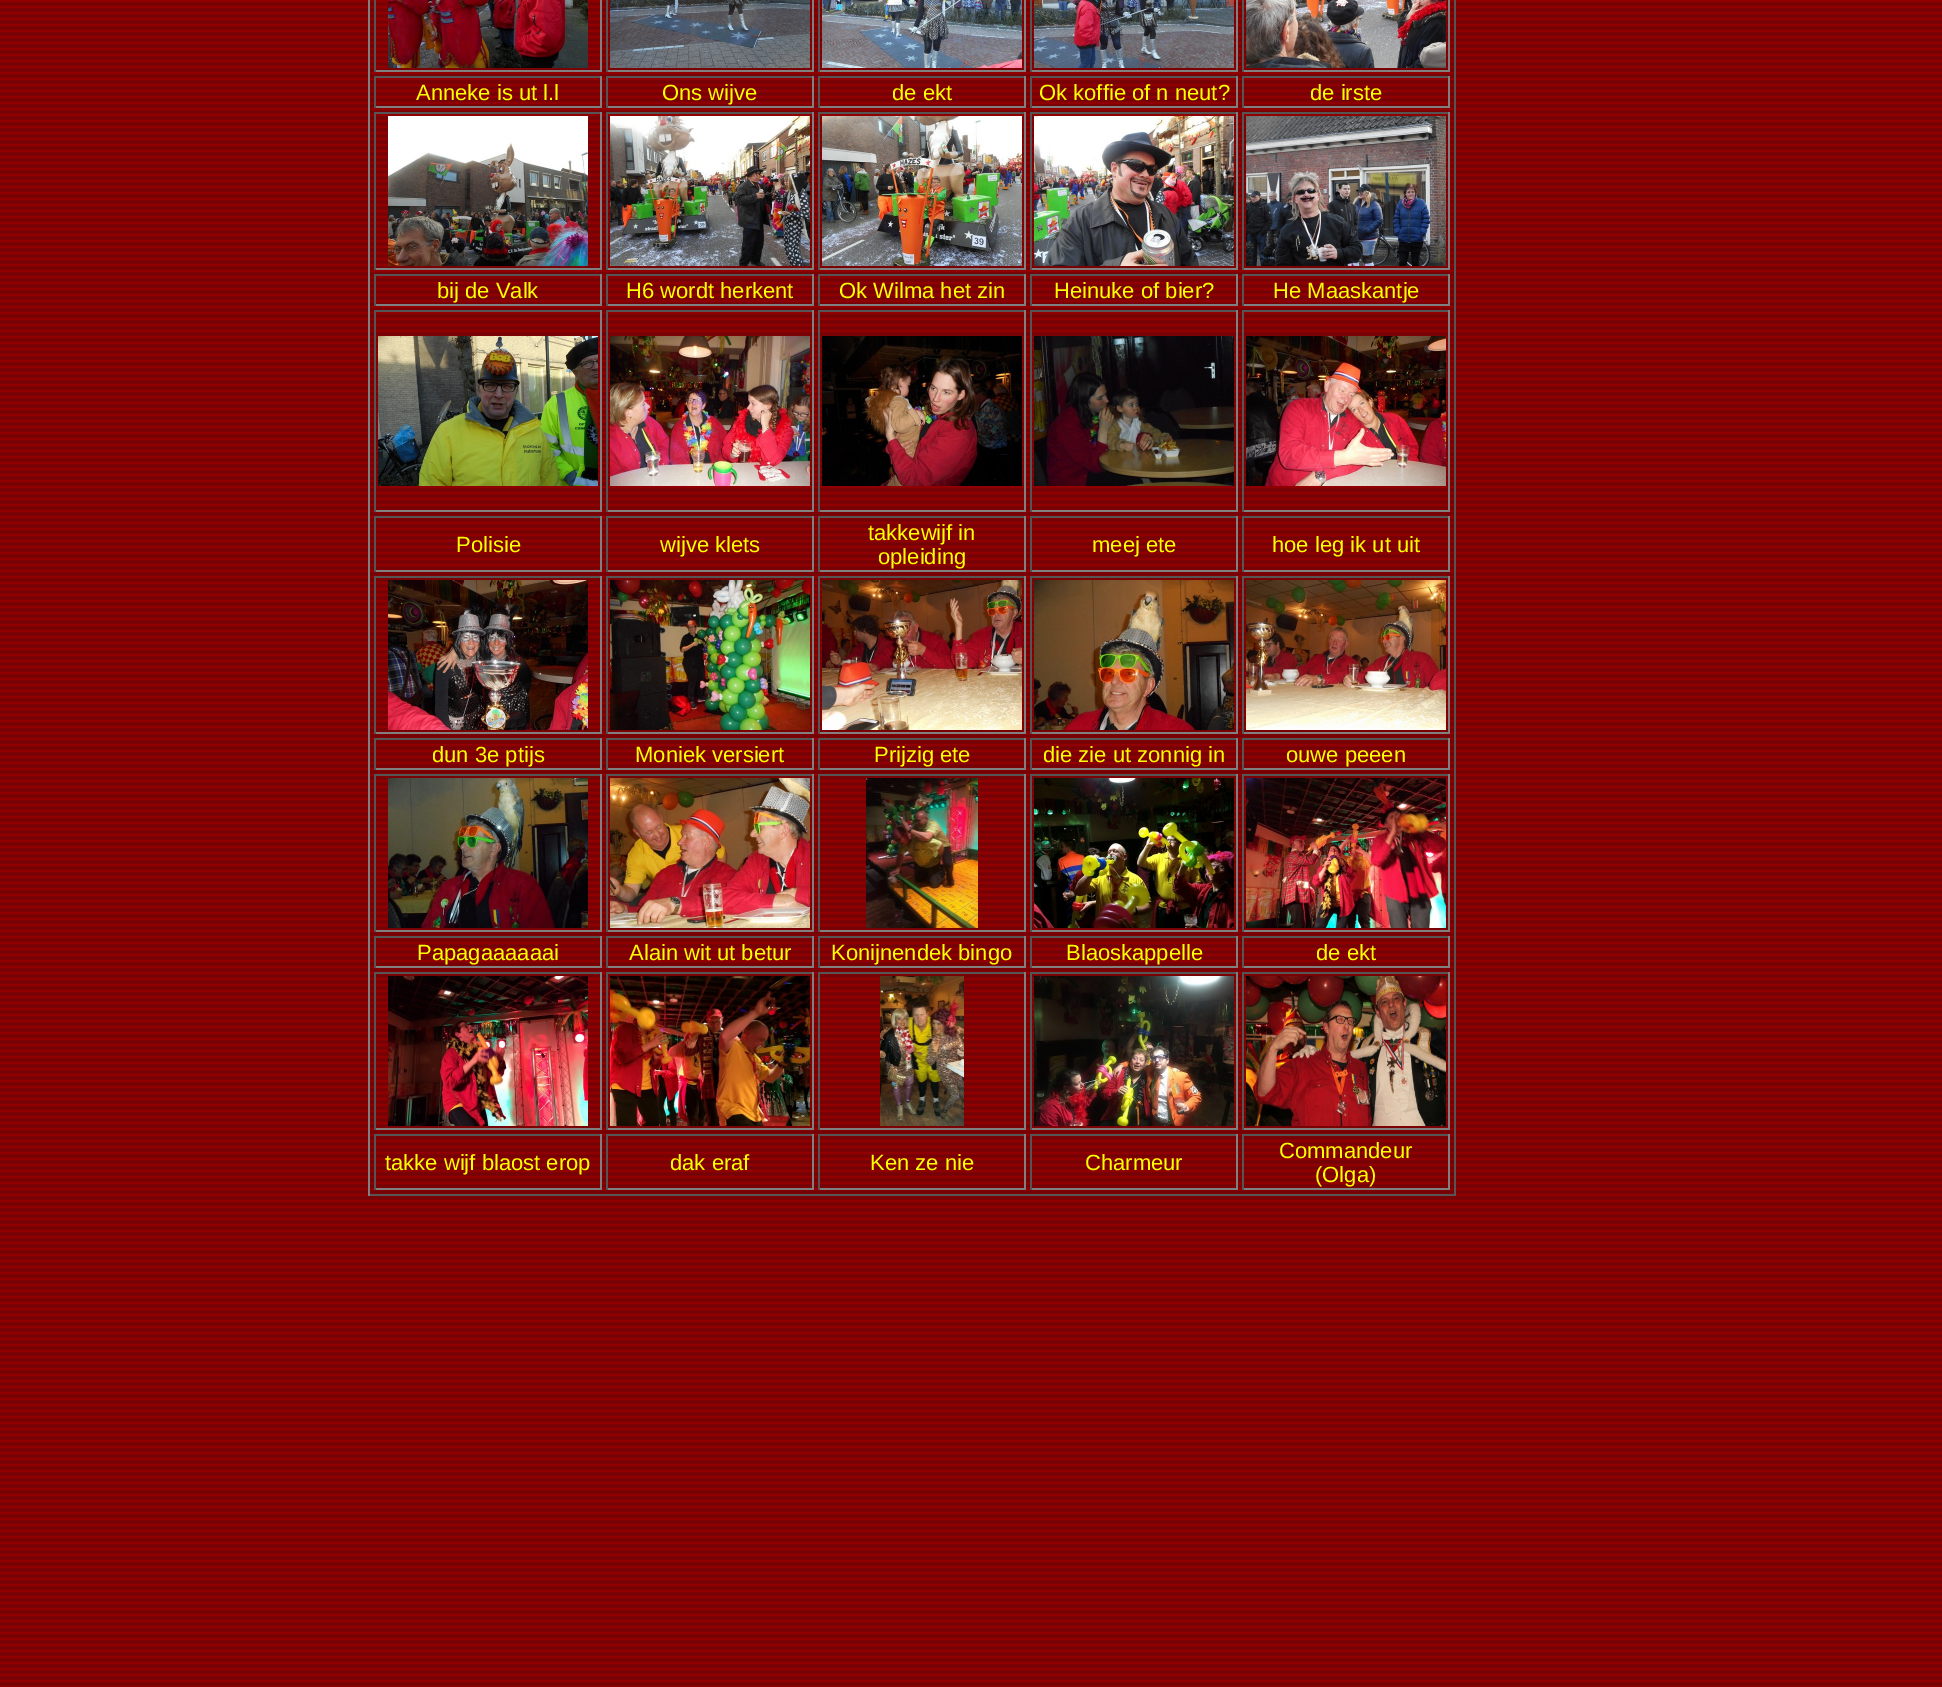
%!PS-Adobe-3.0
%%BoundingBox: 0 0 1942 1687
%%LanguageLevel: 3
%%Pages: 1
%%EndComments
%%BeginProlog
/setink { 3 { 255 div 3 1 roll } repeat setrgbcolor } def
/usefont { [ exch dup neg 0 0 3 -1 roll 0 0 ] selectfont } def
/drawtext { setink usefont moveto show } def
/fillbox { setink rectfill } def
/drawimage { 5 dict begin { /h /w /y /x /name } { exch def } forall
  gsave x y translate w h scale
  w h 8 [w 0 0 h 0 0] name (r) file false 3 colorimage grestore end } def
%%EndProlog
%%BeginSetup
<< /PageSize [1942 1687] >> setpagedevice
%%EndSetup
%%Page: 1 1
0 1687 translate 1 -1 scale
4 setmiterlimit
0 0 1942 1687 255 255 255 fillbox
(assets/img1.rgb) 0 0 1942 1687 drawimage
1454 0 2 1196 85 85 85 fillbox
368 1194 1088 2 85 85 85 fillbox
368 0 2 1196 128 128 128 fillbox
600 0 2 72 128 128 128 fillbox
374 70 228 2 128 128 128 fillbox
374 0 2 72 85 85 85 fillbox
(assets/img2.rgb) 388 0 200 68 drawimage
812 0 2 72 128 128 128 fillbox
606 70 208 2 128 128 128 fillbox
606 0 2 72 85 85 85 fillbox
(assets/img3.rgb) 610 0 200 68 drawimage
1024 0 2 72 128 128 128 fillbox
818 70 208 2 128 128 128 fillbox
818 0 2 72 85 85 85 fillbox
(assets/img4.rgb) 822 0 200 68 drawimage
1236 0 2 72 128 128 128 fillbox
1030 70 208 2 128 128 128 fillbox
1030 0 2 72 85 85 85 fillbox
(assets/img5.rgb) 1034 0 200 68 drawimage
1448 0 2 72 128 128 128 fillbox
1242 70 208 2 128 128 128 fillbox
1242 0 2 72 85 85 85 fillbox
(assets/img6.rgb) 1246 0 200 68 drawimage
374 76 228 2 85 85 85 fillbox
600 76 2 32 128 128 128 fillbox
374 106 228 2 128 128 128 fillbox
374 76 2 32 85 85 85 fillbox
(Anneke is ut l.l) 416 100 /LiberationSans-Regular 22 255 255 0 drawtext
606 76 208 2 85 85 85 fillbox
812 76 2 32 128 128 128 fillbox
606 106 208 2 128 128 128 fillbox
606 76 2 32 85 85 85 fillbox
(Ons wijve) 662 100 /LiberationSans-Regular 22 255 255 0 drawtext
818 76 208 2 85 85 85 fillbox
1024 76 2 32 128 128 128 fillbox
818 106 208 2 128 128 128 fillbox
818 76 2 32 85 85 85 fillbox
(de ekt) 892 100 /LiberationSans-Regular 22 255 255 0 drawtext
1030 76 208 2 85 85 85 fillbox
1236 76 2 32 128 128 128 fillbox
1030 106 208 2 128 128 128 fillbox
1030 76 2 32 85 85 85 fillbox
(Ok koffie of n neut?) 1039 100 /LiberationSans-Regular 22 255 255 0 drawtext
1242 76 208 2 85 85 85 fillbox
1448 76 2 32 128 128 128 fillbox
1242 106 208 2 128 128 128 fillbox
1242 76 2 32 85 85 85 fillbox
(de irste) 1310 100 /LiberationSans-Regular 22 255 255 0 drawtext
374 112 228 2 85 85 85 fillbox
600 112 2 158 128 128 128 fillbox
374 268 228 2 128 128 128 fillbox
374 112 2 158 85 85 85 fillbox
(assets/img7.rgb) 388 116 200 150 drawimage
606 112 208 2 85 85 85 fillbox
812 112 2 158 128 128 128 fillbox
606 268 208 2 128 128 128 fillbox
606 112 2 158 85 85 85 fillbox
(assets/img8.rgb) 610 116 200 150 drawimage
818 112 208 2 85 85 85 fillbox
1024 112 2 158 128 128 128 fillbox
818 268 208 2 128 128 128 fillbox
818 112 2 158 85 85 85 fillbox
(assets/img9.rgb) 822 116 200 150 drawimage
1030 112 208 2 85 85 85 fillbox
1236 112 2 158 128 128 128 fillbox
1030 268 208 2 128 128 128 fillbox
1030 112 2 158 85 85 85 fillbox
(assets/img10.rgb) 1034 116 200 150 drawimage
1242 112 208 2 85 85 85 fillbox
1448 112 2 158 128 128 128 fillbox
1242 268 208 2 128 128 128 fillbox
1242 112 2 158 85 85 85 fillbox
(assets/img11.rgb) 1246 116 200 150 drawimage
374 274 228 2 85 85 85 fillbox
600 274 2 32 128 128 128 fillbox
374 304 228 2 128 128 128 fillbox
374 274 2 32 85 85 85 fillbox
(bij de Valk) 437 298 /LiberationSans-Regular 22 255 255 0 drawtext
606 274 208 2 85 85 85 fillbox
812 274 2 32 128 128 128 fillbox
606 304 208 2 128 128 128 fillbox
606 274 2 32 85 85 85 fillbox
(H6 wordt herkent) 626 298 /LiberationSans-Regular 22 255 255 0 drawtext
818 274 208 2 85 85 85 fillbox
1024 274 2 32 128 128 128 fillbox
818 304 208 2 128 128 128 fillbox
818 274 2 32 85 85 85 fillbox
(Ok Wilma het zin) 839 298 /LiberationSans-Regular 22 255 255 0 drawtext
1030 274 208 2 85 85 85 fillbox
1236 274 2 32 128 128 128 fillbox
1030 304 208 2 128 128 128 fillbox
1030 274 2 32 85 85 85 fillbox
(Heinuke of bier?) 1054 298 /LiberationSans-Regular 22 255 255 0 drawtext
1242 274 208 2 85 85 85 fillbox
1448 274 2 32 128 128 128 fillbox
1242 304 208 2 128 128 128 fillbox
1242 274 2 32 85 85 85 fillbox
(He Maaskantje) 1273 298 /LiberationSans-Regular 22 255 255 0 drawtext
374 310 228 2 85 85 85 fillbox
600 310 2 202 128 128 128 fillbox
374 510 228 2 128 128 128 fillbox
374 310 2 202 85 85 85 fillbox
(assets/img12.rgb) 378 336 220 150 drawimage
606 310 208 2 85 85 85 fillbox
812 310 2 202 128 128 128 fillbox
606 510 208 2 128 128 128 fillbox
606 310 2 202 85 85 85 fillbox
(assets/img13.rgb) 610 336 200 150 drawimage
818 310 208 2 85 85 85 fillbox
1024 310 2 202 128 128 128 fillbox
818 510 208 2 128 128 128 fillbox
818 310 2 202 85 85 85 fillbox
(assets/img14.rgb) 822 336 200 150 drawimage
1030 310 208 2 85 85 85 fillbox
1236 310 2 202 128 128 128 fillbox
1030 510 208 2 128 128 128 fillbox
1030 310 2 202 85 85 85 fillbox
(assets/img15.rgb) 1034 336 200 150 drawimage
1242 310 208 2 85 85 85 fillbox
1448 310 2 202 128 128 128 fillbox
1242 510 208 2 128 128 128 fillbox
1242 310 2 202 85 85 85 fillbox
(assets/img16.rgb) 1246 336 200 150 drawimage
374 516 228 2 85 85 85 fillbox
600 516 2 56 128 128 128 fillbox
374 570 228 2 128 128 128 fillbox
374 516 2 56 85 85 85 fillbox
(Polisie) 456 552 /LiberationSans-Regular 22 255 255 0 drawtext
606 516 208 2 85 85 85 fillbox
812 516 2 56 128 128 128 fillbox
606 570 208 2 128 128 128 fillbox
606 516 2 56 85 85 85 fillbox
(wijve klets) 660 552 /LiberationSans-Regular 22 255 255 0 drawtext
818 516 208 2 85 85 85 fillbox
1024 516 2 56 128 128 128 fillbox
818 570 208 2 128 128 128 fillbox
818 516 2 56 85 85 85 fillbox
(takkewijf in) 868 540 /LiberationSans-Regular 22 255 255 0 drawtext
(opleiding) 878 564 /LiberationSans-Regular 22 255 255 0 drawtext
1030 516 208 2 85 85 85 fillbox
1236 516 2 56 128 128 128 fillbox
1030 570 208 2 128 128 128 fillbox
1030 516 2 56 85 85 85 fillbox
(meej ete) 1092 552 /LiberationSans-Regular 22 255 255 0 drawtext
1242 516 208 2 85 85 85 fillbox
1448 516 2 56 128 128 128 fillbox
1242 570 208 2 128 128 128 fillbox
1242 516 2 56 85 85 85 fillbox
(hoe leg ik ut uit) 1272 552 /LiberationSans-Regular 22 255 255 0 drawtext
374 576 228 2 85 85 85 fillbox
600 576 2 158 128 128 128 fillbox
374 732 228 2 128 128 128 fillbox
374 576 2 158 85 85 85 fillbox
(assets/img17.rgb) 388 580 200 150 drawimage
606 576 208 2 85 85 85 fillbox
812 576 2 158 128 128 128 fillbox
606 732 208 2 128 128 128 fillbox
606 576 2 158 85 85 85 fillbox
(assets/img18.rgb) 610 580 200 150 drawimage
818 576 208 2 85 85 85 fillbox
1024 576 2 158 128 128 128 fillbox
818 732 208 2 128 128 128 fillbox
818 576 2 158 85 85 85 fillbox
(assets/img19.rgb) 822 580 200 150 drawimage
1030 576 208 2 85 85 85 fillbox
1236 576 2 158 128 128 128 fillbox
1030 732 208 2 128 128 128 fillbox
1030 576 2 158 85 85 85 fillbox
(assets/img20.rgb) 1034 580 200 150 drawimage
1242 576 208 2 85 85 85 fillbox
1448 576 2 158 128 128 128 fillbox
1242 732 208 2 128 128 128 fillbox
1242 576 2 158 85 85 85 fillbox
(assets/img21.rgb) 1246 580 200 150 drawimage
374 738 228 2 85 85 85 fillbox
600 738 2 32 128 128 128 fillbox
374 768 228 2 128 128 128 fillbox
374 738 2 32 85 85 85 fillbox
(dun 3e ptijs) 432 762 /LiberationSans-Regular 22 255 255 0 drawtext
606 738 208 2 85 85 85 fillbox
812 738 2 32 128 128 128 fillbox
606 768 208 2 128 128 128 fillbox
606 738 2 32 85 85 85 fillbox
(Moniek versiert) 635 762 /LiberationSans-Regular 22 255 255 0 drawtext
818 738 208 2 85 85 85 fillbox
1024 738 2 32 128 128 128 fillbox
818 768 208 2 128 128 128 fillbox
818 738 2 32 85 85 85 fillbox
(Prijzig ete) 874 762 /LiberationSans-Regular 22 255 255 0 drawtext
1030 738 208 2 85 85 85 fillbox
1236 738 2 32 128 128 128 fillbox
1030 768 208 2 128 128 128 fillbox
1030 738 2 32 85 85 85 fillbox
(die zie ut zonnig in) 1043 762 /LiberationSans-Regular 22 255 255 0 drawtext
1242 738 208 2 85 85 85 fillbox
1448 738 2 32 128 128 128 fillbox
1242 768 208 2 128 128 128 fillbox
1242 738 2 32 85 85 85 fillbox
(ouwe peeen) 1286 762 /LiberationSans-Regular 22 255 255 0 drawtext
374 774 228 2 85 85 85 fillbox
600 774 2 158 128 128 128 fillbox
374 930 228 2 128 128 128 fillbox
374 774 2 158 85 85 85 fillbox
(assets/img22.rgb) 388 778 200 150 drawimage
606 774 208 2 85 85 85 fillbox
812 774 2 158 128 128 128 fillbox
606 930 208 2 128 128 128 fillbox
606 774 2 158 85 85 85 fillbox
(assets/img23.rgb) 610 778 200 150 drawimage
818 774 208 2 85 85 85 fillbox
1024 774 2 158 128 128 128 fillbox
818 930 208 2 128 128 128 fillbox
818 774 2 158 85 85 85 fillbox
(assets/img24.rgb) 866 778 112 150 drawimage
1030 774 208 2 85 85 85 fillbox
1236 774 2 158 128 128 128 fillbox
1030 930 208 2 128 128 128 fillbox
1030 774 2 158 85 85 85 fillbox
(assets/img25.rgb) 1034 778 200 150 drawimage
1242 774 208 2 85 85 85 fillbox
1448 774 2 158 128 128 128 fillbox
1242 930 208 2 128 128 128 fillbox
1242 774 2 158 85 85 85 fillbox
(assets/img26.rgb) 1246 778 200 150 drawimage
374 936 228 2 85 85 85 fillbox
600 936 2 32 128 128 128 fillbox
374 966 228 2 128 128 128 fillbox
374 936 2 32 85 85 85 fillbox
(Papagaaaaaai) 417 960 /LiberationSans-Regular 22 255 255 0 drawtext
606 936 208 2 85 85 85 fillbox
812 936 2 32 128 128 128 fillbox
606 966 208 2 128 128 128 fillbox
606 936 2 32 85 85 85 fillbox
(Alain wit ut betur) 629 960 /LiberationSans-Regular 22 255 255 0 drawtext
818 936 208 2 85 85 85 fillbox
1024 936 2 32 128 128 128 fillbox
818 966 208 2 128 128 128 fillbox
818 936 2 32 85 85 85 fillbox
(Konijnendek bingo) 831 960 /LiberationSans-Regular 22 255 255 0 drawtext
1030 936 208 2 85 85 85 fillbox
1236 936 2 32 128 128 128 fillbox
1030 966 208 2 128 128 128 fillbox
1030 936 2 32 85 85 85 fillbox
(Blaoskappelle) 1066 960 /LiberationSans-Regular 22 255 255 0 drawtext
1242 936 208 2 85 85 85 fillbox
1448 936 2 32 128 128 128 fillbox
1242 966 208 2 128 128 128 fillbox
1242 936 2 32 85 85 85 fillbox
(de ekt) 1316 960 /LiberationSans-Regular 22 255 255 0 drawtext
374 972 228 2 85 85 85 fillbox
600 972 2 158 128 128 128 fillbox
374 1128 228 2 128 128 128 fillbox
374 972 2 158 85 85 85 fillbox
(assets/img27.rgb) 388 976 200 150 drawimage
606 972 208 2 85 85 85 fillbox
812 972 2 158 128 128 128 fillbox
606 1128 208 2 128 128 128 fillbox
606 972 2 158 85 85 85 fillbox
(assets/img28.rgb) 610 976 200 150 drawimage
818 972 208 2 85 85 85 fillbox
1024 972 2 158 128 128 128 fillbox
818 1128 208 2 128 128 128 fillbox
818 972 2 158 85 85 85 fillbox
(assets/img29.rgb) 880 976 84 150 drawimage
1030 972 208 2 85 85 85 fillbox
1236 972 2 158 128 128 128 fillbox
1030 1128 208 2 128 128 128 fillbox
1030 972 2 158 85 85 85 fillbox
(assets/img30.rgb) 1034 976 200 150 drawimage
1242 972 208 2 85 85 85 fillbox
1448 972 2 158 128 128 128 fillbox
1242 1128 208 2 128 128 128 fillbox
1242 972 2 158 85 85 85 fillbox
(assets/img31.rgb) 1246 976 200 150 drawimage
374 1134 228 2 85 85 85 fillbox
600 1134 2 56 128 128 128 fillbox
374 1188 228 2 128 128 128 fillbox
374 1134 2 56 85 85 85 fillbox
(takke wijf blaost erop) 385 1170 /LiberationSans-Regular 22 255 255 0 drawtext
606 1134 208 2 85 85 85 fillbox
812 1134 2 56 128 128 128 fillbox
606 1188 208 2 128 128 128 fillbox
606 1134 2 56 85 85 85 fillbox
(dak eraf) 670 1170 /LiberationSans-Regular 22 255 255 0 drawtext
818 1134 208 2 85 85 85 fillbox
1024 1134 2 56 128 128 128 fillbox
818 1188 208 2 128 128 128 fillbox
818 1134 2 56 85 85 85 fillbox
(Ken ze nie) 870 1170 /LiberationSans-Regular 22 255 255 0 drawtext
1030 1134 208 2 85 85 85 fillbox
1236 1134 2 56 128 128 128 fillbox
1030 1188 208 2 128 128 128 fillbox
1030 1134 2 56 85 85 85 fillbox
(Charmeur) 1085 1170 /LiberationSans-Regular 22 255 255 0 drawtext
1242 1134 208 2 85 85 85 fillbox
1448 1134 2 56 128 128 128 fillbox
1242 1188 208 2 128 128 128 fillbox
1242 1134 2 56 85 85 85 fillbox
(Commandeur) 1279 1158 /LiberationSans-Regular 22 255 255 0 drawtext
(\(Olga\)) 1315 1182 /LiberationSans-Regular 22 255 255 0 drawtext
showpage
%%EOF
